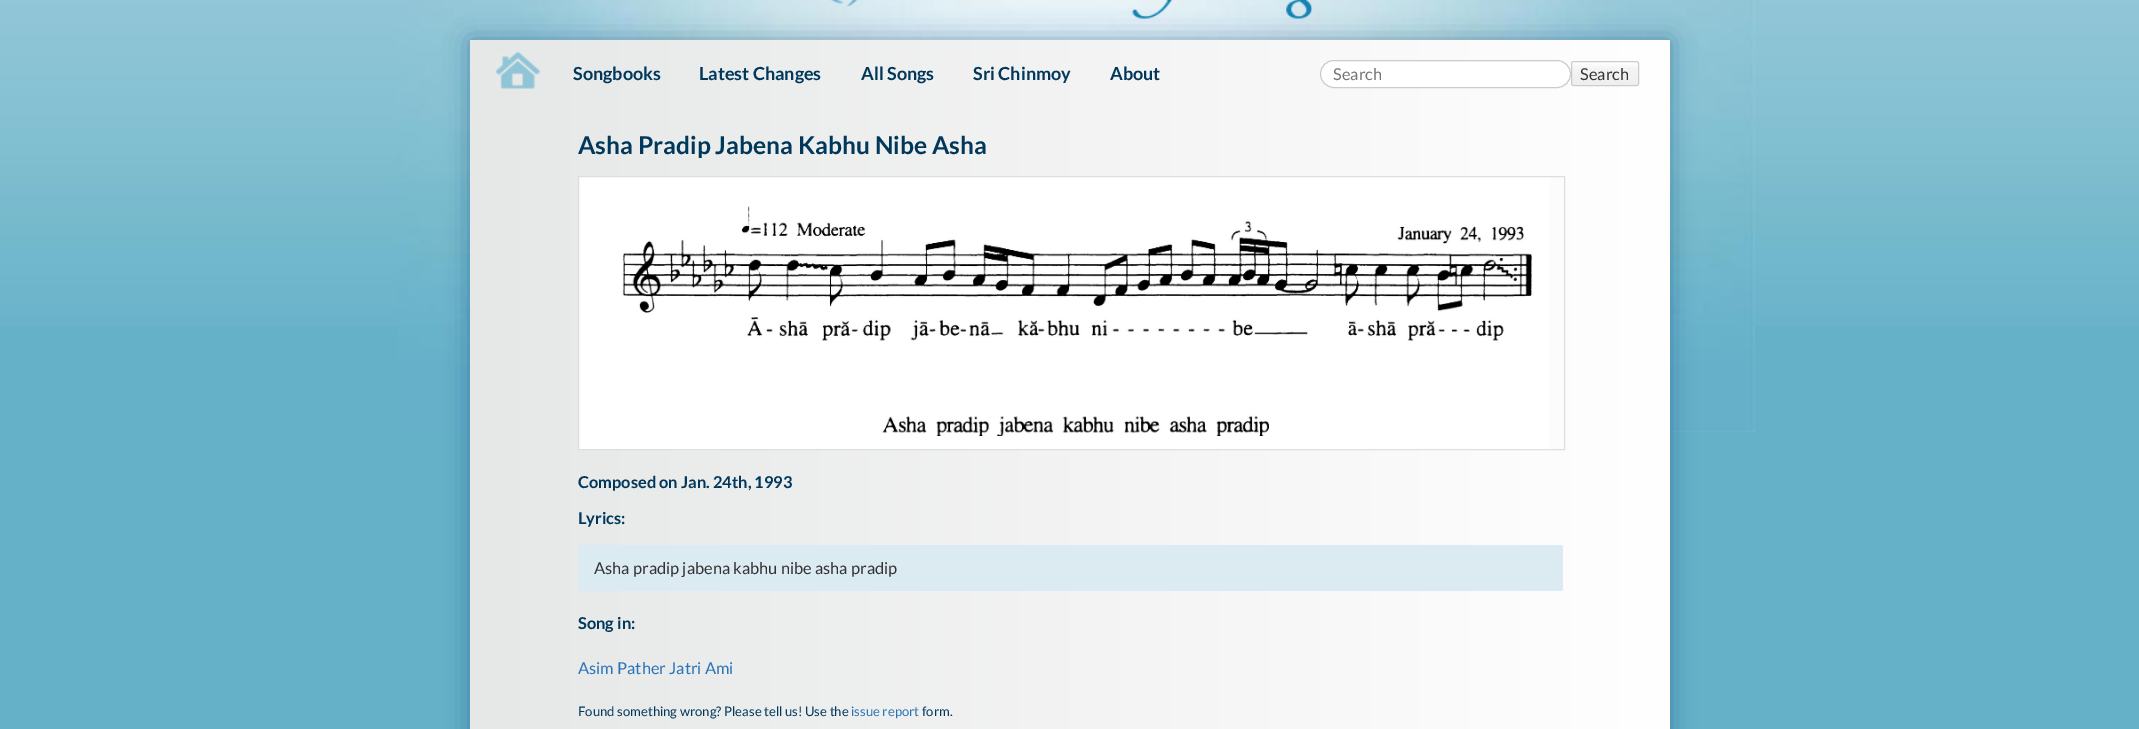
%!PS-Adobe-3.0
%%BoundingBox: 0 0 2139 729
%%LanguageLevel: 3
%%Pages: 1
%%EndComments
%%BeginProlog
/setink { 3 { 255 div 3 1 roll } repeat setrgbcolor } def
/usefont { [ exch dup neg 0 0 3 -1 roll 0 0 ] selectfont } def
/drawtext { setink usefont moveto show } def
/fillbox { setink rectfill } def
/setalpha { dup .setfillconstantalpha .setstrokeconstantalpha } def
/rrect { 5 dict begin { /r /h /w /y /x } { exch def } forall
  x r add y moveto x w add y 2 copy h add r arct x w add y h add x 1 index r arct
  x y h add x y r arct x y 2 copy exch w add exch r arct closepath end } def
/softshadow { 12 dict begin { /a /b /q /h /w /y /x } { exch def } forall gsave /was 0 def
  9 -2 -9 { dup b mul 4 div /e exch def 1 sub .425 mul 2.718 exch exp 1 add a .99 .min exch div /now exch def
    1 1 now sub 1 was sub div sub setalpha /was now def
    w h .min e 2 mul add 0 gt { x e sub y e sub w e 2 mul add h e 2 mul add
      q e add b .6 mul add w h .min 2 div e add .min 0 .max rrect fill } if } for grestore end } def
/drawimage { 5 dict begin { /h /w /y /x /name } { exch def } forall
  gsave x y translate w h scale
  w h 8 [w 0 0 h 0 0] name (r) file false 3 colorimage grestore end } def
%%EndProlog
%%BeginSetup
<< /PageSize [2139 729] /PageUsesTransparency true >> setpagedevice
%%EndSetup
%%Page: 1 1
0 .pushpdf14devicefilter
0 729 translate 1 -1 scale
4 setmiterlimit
0 0 2139 729 101 177 200 fillbox
(assets/img1.rgb) 0 0 2139 326 drawimage
(assets/img2.rgb) 397 0 1358 433 drawimage
(assets/img3.rgb) 831 0 482 19 drawimage
1 68 117 setink
470 40 1200 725 0 12.5 0.42 softshadow
gsave 470 40 moveto 1670 40 lineto 1670 729 lineto 470 729 lineto closepath clip newpath
<< /ShadingType 2 /ColorSpace /DeviceRGB /Coords [470 403 1670 402] /Extend [true true] /Function << /FunctionType 2 /Domain [0 1] /C0 [0.902 0.906 0.906] /C1 [1 1 1] /N 1 >> >> shfill grestore
(assets/img4.rgb) 496 52 45 37 drawimage
(Songbooks) 573 80 /Lato-Bold 18 0 55 90 drawtext
(Latest Changes) 699 80 /Lato-Bold 18 0 55 90 drawtext
(All Songs) 861 80 /Lato-Bold 18 0 55 90 drawtext
(Sri Chinmoy) 973 80 /Lato-Bold 18 0 55 90 drawtext
(About) 1110 80 /Lato-Bold 18 0 55 90 drawtext
255 255 255 setink
1320.5 60.5 250 27 13.5 rrect gsave fill grestore
204 204 204 setink
stroke
(Search) 1333 80 /Lato-Regular 16.4 117 117 117 drawtext
(assets/img5.rgb) 1571 62 68 24 drawimage
204 204 204 setink
1571.5 61.5 67 24 2 rrect stroke
(Search) 1580 80 /Lato-Regular 16.4 51 51 51 drawtext
(Asha Pradip Jabena Kabhu Nibe Asha) 578 154 /Lato-Bold 24.6 0 55 90 drawtext
579 177 971 272 255 255 255 fillbox
222 222 222 setink
578.5 176.5 986 273 rectstroke
(assets/img6.rgb) 622 206 911 230 drawimage
(Composed on Jan. 24th, 1993) 578 488 /Lato-Bold 16.4 0 55 90 drawtext
(Lyrics:) 578 524 /Lato-Bold 16.4 0 55 90 drawtext
219 235 241 setink
578 545 985 46 2.5 rrect fill
(Asha pradip jabena kabhu nibe asha pradip) 594 574 /Lato-Regular 16.4 51 51 51 drawtext
(Song in:) 578 629 /Lato-Bold 16.4 0 55 90 drawtext
(Asim Pather Jatri Ami) 578 674 /Lato-Regular 16.4 43 115 183 drawtext
(Found something wrong? Please tell us! Use the) 578 716 /Lato-Regular 13.1 0 55 90 drawtext
(issue report) 851 716 /Lato-Regular 13.1 43 115 183 drawtext
(form.) 922 716 /Lato-Regular 13.1 0 55 90 drawtext
.poppdf14devicefilter showpage
%%EOF
